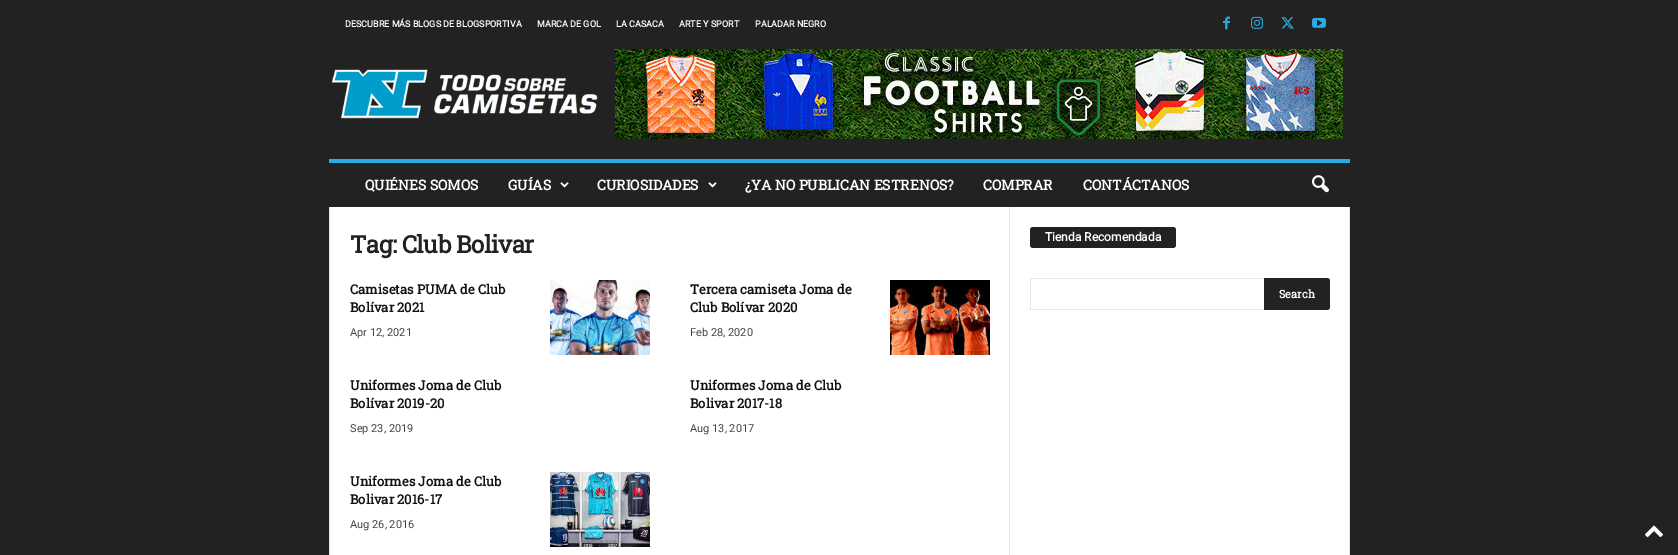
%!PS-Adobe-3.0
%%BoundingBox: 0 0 1678 555
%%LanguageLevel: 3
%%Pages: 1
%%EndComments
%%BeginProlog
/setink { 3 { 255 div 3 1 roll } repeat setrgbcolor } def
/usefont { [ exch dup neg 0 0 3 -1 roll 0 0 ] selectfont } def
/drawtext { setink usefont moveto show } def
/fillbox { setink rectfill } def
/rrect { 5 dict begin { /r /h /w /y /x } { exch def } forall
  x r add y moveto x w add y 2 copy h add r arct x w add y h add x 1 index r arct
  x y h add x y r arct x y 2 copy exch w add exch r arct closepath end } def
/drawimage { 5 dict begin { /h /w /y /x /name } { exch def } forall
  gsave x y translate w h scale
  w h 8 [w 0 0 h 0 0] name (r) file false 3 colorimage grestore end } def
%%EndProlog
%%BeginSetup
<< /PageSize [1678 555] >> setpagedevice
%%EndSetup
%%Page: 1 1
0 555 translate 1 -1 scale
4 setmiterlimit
0 0 1678 555 34 34 34 fillbox
(DESCUBRE MÁS BLOGS DE BLOGSPORTIVA) 345 27 /Roboto-Bold 9 255 255 255 drawtext
(MARCA DE GOL) 537 27 /Roboto-Bold 9 255 255 255 drawtext
(LA CASACA) 616 27 /Roboto-Bold 9 255 255 255 drawtext
(ARTE Y SPORT) 679 27 /Roboto-Bold 9 255 255 255 drawtext
(PALADAR NEGRO) 755 27 /Roboto-Bold 9 255 255 255 drawtext
(assets/img1.rgb) 1223 16 7 14 drawimage
(assets/img2.rgb) 1251 16 12 13 drawimage
(assets/img3.rgb) 1281 17 13 12 drawimage
(assets/img4.rgb) 1312 17 14 11 drawimage
(assets/img5.rgb) 331 69 267 50 drawimage
(assets/img6.rgb) 615 49 728 90 drawimage
329 159 1021 4 40 172 226 fillbox
(QUIÉNES SOMOS) 365 190 /RobotoSlab-Bold 14 255 255 255 drawtext
(GUÍAS) 508 190 /RobotoSlab-Bold 14 255 255 255 drawtext
(assets/img7.rgb) 560 182 9 6 drawimage
(CURIOSIDADES) 597 190 /RobotoSlab-Bold 14 255 255 255 drawtext
(assets/img7.rgb) 708 182 9 6 drawimage
(¿YA NO PUBLICAN ESTRENOS?) 745 190 /RobotoSlab-Bold 14 255 255 255 drawtext
(COMPRAR) 983 190 /RobotoSlab-Bold 14 255 255 255 drawtext
(CONTÁCTANOS) 1083 190 /RobotoSlab-Bold 14 255 255 255 drawtext
(assets/img8.rgb) 1312 175 17 18 drawimage
330 207 1019 348 255 255 255 fillbox
329 207 1 348 230 230 230 fillbox
/RobotoSlab-Bold 24 usefont
34 34 34 setink
350 253 moveto -0.5 0 (Tag: Club Bolivar) ashow
(Camisetas PUMA de Club) 350 294 /RobotoSlab-Bold 13 17 17 17 drawtext
(Bolívar 2021) 350 312 /RobotoSlab-Bold 13 17 17 17 drawtext
(Apr 12, 2021) 350 336 /Roboto-Regular 11 68 68 68 drawtext
(assets/img9.rgb) 550 280 100 75 drawimage
(Tercera camiseta Joma de) 690 294 /RobotoSlab-Bold 13 17 17 17 drawtext
(Club Bolívar 2020) 690 312 /RobotoSlab-Bold 13 17 17 17 drawtext
(Feb 28, 2020) 690 336 /Roboto-Regular 11 68 68 68 drawtext
(assets/img10.rgb) 890 280 100 75 drawimage
(Uniformes Joma de Club) 350 390 /RobotoSlab-Bold 13 17 17 17 drawtext
(Bolívar 2019-20) 350 408 /RobotoSlab-Bold 13 17 17 17 drawtext
(Sep 23, 2019) 350 432 /Roboto-Regular 11 68 68 68 drawtext
(Uniformes Joma de Club) 690 390 /RobotoSlab-Bold 13 17 17 17 drawtext
(Bolivar 2017-18) 690 408 /RobotoSlab-Bold 13 17 17 17 drawtext
(Aug 13, 2017) 690 432 /Roboto-Regular 11 68 68 68 drawtext
(Uniformes Joma de Club) 350 486 /RobotoSlab-Bold 13 17 17 17 drawtext
(Bolivar 2016-17) 350 504 /RobotoSlab-Bold 13 17 17 17 drawtext
(Aug 26, 2016) 350 528 /Roboto-Regular 11 68 68 68 drawtext
(assets/img11.rgb) 550 472 100 75 drawimage
1009 207 1 348 230 230 230 fillbox
34 34 34 setink
1030 227 146 21 3 rrect fill
(Tienda Recomendada) 1045 241 /Roboto-Bold 12 255 255 255 drawtext
1030 278 234 1 230 230 230 fillbox
1030 309 234 1 230 230 230 fillbox
1030 278 1 32 230 230 230 fillbox
34 34 34 setink
1264 278 moveto 1327 278 lineto 1328.5 278 1330 279.5 1330 281 curveto 1330 307 lineto 1330 308.5 1328.5 310 1327 310 curveto 1264 310 lineto closepath fill
(Search) 1279 298 /RobotoSlab-Bold 11 255 255 255 drawtext
1349 207 1 348 230 230 230 fillbox
(assets/img12.rgb) 1645 525 18 13 drawimage
showpage
%%EOF
